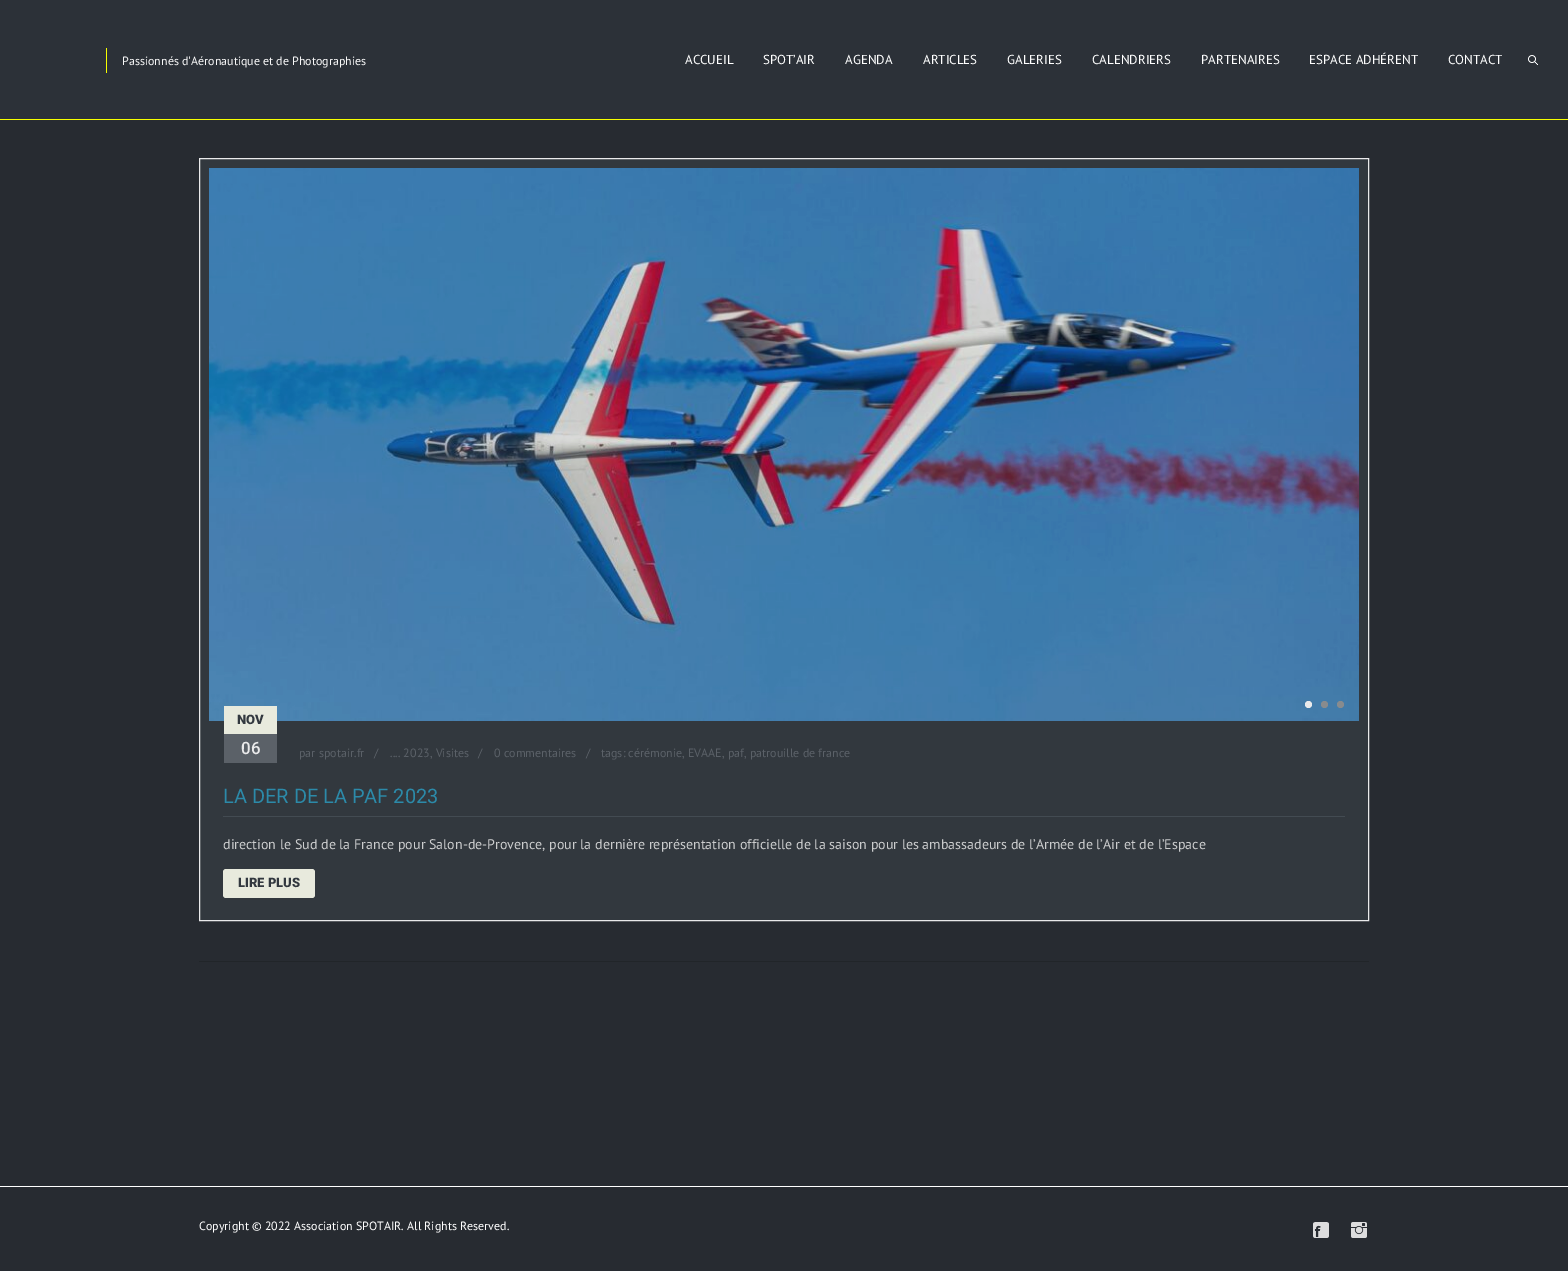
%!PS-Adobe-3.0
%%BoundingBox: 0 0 1568 1271
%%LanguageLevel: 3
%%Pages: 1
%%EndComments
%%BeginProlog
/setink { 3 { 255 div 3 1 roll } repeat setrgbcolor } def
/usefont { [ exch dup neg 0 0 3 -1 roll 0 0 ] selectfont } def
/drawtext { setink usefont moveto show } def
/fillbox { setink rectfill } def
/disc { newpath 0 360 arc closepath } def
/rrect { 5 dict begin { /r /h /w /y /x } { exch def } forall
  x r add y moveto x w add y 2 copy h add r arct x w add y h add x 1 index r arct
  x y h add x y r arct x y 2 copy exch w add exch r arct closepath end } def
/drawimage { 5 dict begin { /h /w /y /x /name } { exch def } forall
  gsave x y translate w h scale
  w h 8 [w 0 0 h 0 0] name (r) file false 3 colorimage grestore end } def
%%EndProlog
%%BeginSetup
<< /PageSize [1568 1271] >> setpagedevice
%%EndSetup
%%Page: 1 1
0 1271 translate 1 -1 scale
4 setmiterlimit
0 0 1568 1271 39 43 49 fillbox
0 0 1568 119 44 49 56 fillbox
0 119 1568 1 247 255 0 fillbox
106 48 1 25 247 255 0 fillbox
(Passionnés d'Aéronautique et de Photographies) 122 65 /PTSans-Regular 12 247 247 247 drawtext
(ACCUEIL) 685 64 /PTSans-Regular 13 255 255 255 drawtext
(SPOT’AIR) 763 64 /PTSans-Regular 13 255 255 255 drawtext
(AGENDA) 845 64 /PTSans-Regular 13 255 255 255 drawtext
(ARTICLES) 923 64 /PTSans-Regular 13 255 255 255 drawtext
(GALERIES) 1007 64 /PTSans-Regular 13 255 255 255 drawtext
(CALENDRIERS) 1092 64 /PTSans-Regular 13 255 255 255 drawtext
(PARTENAIRES) 1201 64 /PTSans-Regular 13 255 255 255 drawtext
(ESPACE ADHÉRENT) 1309 64 /PTSans-Regular 13 255 255 255 drawtext
(CONTACT) 1448 64 /PTSans-Regular 13 255 255 255 drawtext
(assets/img1.rgb) 1528 55 10 10 drawimage
199 961 1170 1 33 37 41 fillbox
50 56 62 setink
199.5 158.5 moveto 1368.5 158.5 lineto 1368.5 920.5 lineto 199.5 920.5 lineto closepath gsave fill grestore
234 234 235 setink
stroke
(assets/img2.rgb) 209 168 1150 553 drawimage
1308.5 704.5 3.5 disc fill
136 139 142 setink
1324.5 704.5 3.5 disc fill
1340.5 704.5 3.5 disc fill
224 706 53 28 232 234 221 fillbox
(NOV) 237 724 /Roboto-Black 13 50 56 63 drawtext
224 734 53 29 91 97 104 fillbox
(06) 241 754 /Roboto-Medium 17 234 234 235 drawtext
(par spotair.fr) 299 757 /PTSans-Regular 12 91 97 104 drawtext
(/) 374 757 /PTSans-Regular 12 91 97 104 drawtext
(.... 2023, Visites) 390 757 /PTSans-Regular 12 91 97 104 drawtext
(/) 478 757 /PTSans-Regular 12 91 97 104 drawtext
(0 commentaires) 494 757 /PTSans-Regular 12 91 97 104 drawtext
(/) 586 757 /PTSans-Regular 12 91 97 104 drawtext
(tags: cérémonie, EVAAE, paf, patrouille de france) 601 757 /PTSans-Regular 12 91 97 104 drawtext
223 816 1122 1 67 75 82 fillbox
(LA DER DE LA PAF 2023) 223 803 /Roboto-Regular 20 44 138 169 drawtext
(direction le Sud de la France pour Salon-de-Provence, pour la dernière représentation officielle de la saison pour les ambassadeurs de l’Armée de l’Air et de l’Espace) 223 849 /PTSans-Regular 14 203 204 205 drawtext
232 234 221 setink
223 869 92 29 3 rrect fill
(LIRE PLUS) 238 887 /Roboto-Black 13 50 56 63 drawtext
0 1186 1568 1 255 255 255 fillbox
(Copyright © 2022 Association SPOTAIR. All Rights Reserved.) 199 1230 /PTSans-Regular 12 255 255 255 drawtext
(assets/img3.rgb) 1313 1222 16 16 drawimage
(assets/img4.rgb) 1351 1222 16 16 drawimage
showpage
%%EOF
